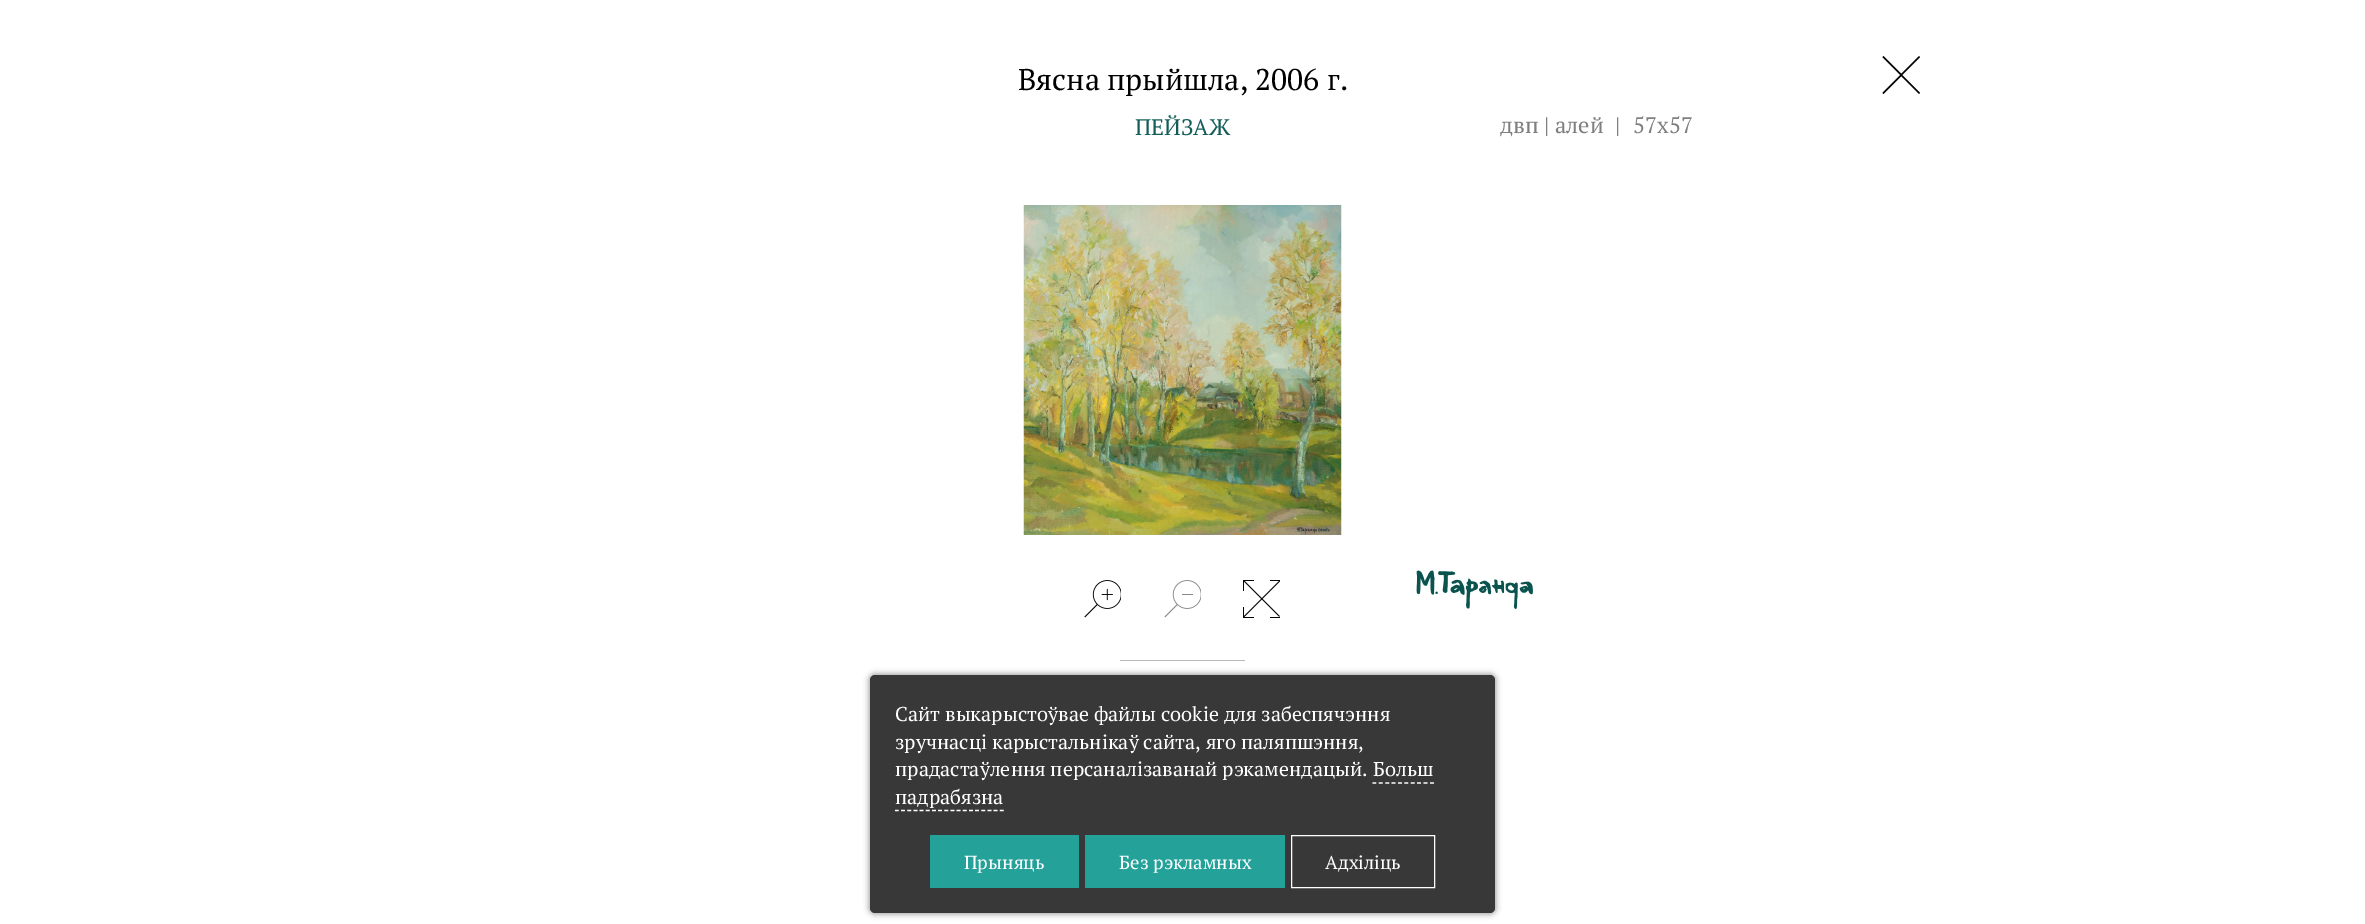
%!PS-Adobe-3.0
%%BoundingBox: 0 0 2365 924
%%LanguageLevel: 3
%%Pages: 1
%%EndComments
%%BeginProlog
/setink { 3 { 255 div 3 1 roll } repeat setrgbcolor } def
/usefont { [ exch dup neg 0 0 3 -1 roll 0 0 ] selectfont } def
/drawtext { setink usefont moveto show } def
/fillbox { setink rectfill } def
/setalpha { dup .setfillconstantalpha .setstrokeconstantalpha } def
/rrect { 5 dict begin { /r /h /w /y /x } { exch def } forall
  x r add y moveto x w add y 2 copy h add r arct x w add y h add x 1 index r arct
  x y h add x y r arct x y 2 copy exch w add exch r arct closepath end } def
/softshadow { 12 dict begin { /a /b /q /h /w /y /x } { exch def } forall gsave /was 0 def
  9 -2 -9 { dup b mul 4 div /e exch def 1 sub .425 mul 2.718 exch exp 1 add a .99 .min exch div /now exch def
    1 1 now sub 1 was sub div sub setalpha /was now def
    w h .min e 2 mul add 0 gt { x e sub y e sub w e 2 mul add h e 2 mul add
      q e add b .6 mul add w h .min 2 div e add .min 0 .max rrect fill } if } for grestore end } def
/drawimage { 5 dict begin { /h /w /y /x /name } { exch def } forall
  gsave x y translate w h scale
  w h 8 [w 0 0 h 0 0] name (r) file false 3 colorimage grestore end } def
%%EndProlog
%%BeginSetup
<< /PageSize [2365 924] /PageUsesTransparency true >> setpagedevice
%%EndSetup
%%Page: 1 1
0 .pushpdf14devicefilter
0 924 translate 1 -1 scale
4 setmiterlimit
0 0 2365 924 255 255 255 fillbox
(Вясна прыйшла, 2006 г.) 1018 90 /PTSerif-Regular 30 0 0 0 drawtext
(ПЕЙЗАЖ) 1135 135 /PTSerif-Regular 22.5 19 93 88 drawtext
(двп | алей) 1500 133 /PTSerif-Regular 22.5 127 127 126 drawtext
(|) 1615 133 /PTSerif-Regular 22.5 127 127 126 drawtext
(57х57) 1633 133 /PTSerif-Regular 22.5 127 127 126 drawtext
3 3 3 setink
1919 94 moveto 1920 93 lineto 1883.5 56 lineto 1882.5 57 lineto closepath fill
1882.5 93 moveto 1883.5 94 lineto 1920 57 lineto 1919 56 lineto closepath fill
(assets/img1.rgb) 1023 205 319 330 drawimage
(assets/img2.rgb) 1416 570 117 39 drawimage
(assets/img3.rgb) 1084 580 37 38 drawimage
(assets/img4.rgb) 1164 580 37 38 drawimage
(assets/img5.rgb) 1243 580 37 38 drawimage
1120 660 125 1 185 185 185 fillbox
gsave
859 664 moveto 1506 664 lineto 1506 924 lineto 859 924 lineto closepath 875 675 moveto 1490 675 lineto 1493 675 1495 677 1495 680 curveto 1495 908 lineto 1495 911 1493 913 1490 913 curveto 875 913 lineto 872 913 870 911 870 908 curveto 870 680 lineto 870 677 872 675 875 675 curveto closepath eoclip newpath
0 0 0 setink
869 674 627 240 6 3 0.4 softshadow
grestore
0.94 setalpha
45 44 44 setink
870 675 625 238 5 rrect fill
1 setalpha
(Сайт выкарыстоўвае файлы cookie для забеспячэння) 895 721 /PTSerif-Regular 20 255 255 255 drawtext
(зручнасці карыстальнікаў сайта, яго паляпшэння,) 895 749 /PTSerif-Regular 20 255 255 255 drawtext
(прадастаўлення персаналізаванай рэкамендацый. Больш) 895 776 /PTSerif-Regular 20 255 255 255 drawtext
(падрабязна) 895 804 /PTSerif-Regular 20 255 255 255 drawtext
1.2 setlinewidth
[3.75 2.64] 0 setdash
1372.5 783 moveto 1434 783 lineto stroke
[3.75 2.42] 0 setdash
895 810.5 moveto 1004 810.5 lineto stroke
930 835 149 53 36 161 152 fillbox
(Прыняць) 964 869 /PTSerif-Regular 18.75 255 255 255 drawtext
1085 835 200 53 36 161 152 fillbox
(Без рэкламных) 1119 869 /PTSerif-Regular 18.75 255 255 255 drawtext
1 setlinewidth
[] 0 setdash
1291.5 835.5 143 52 rectstroke
(Адхіліць) 1325 869 /PTSerif-Regular 18.75 255 255 255 drawtext
.poppdf14devicefilter showpage
%%EOF
